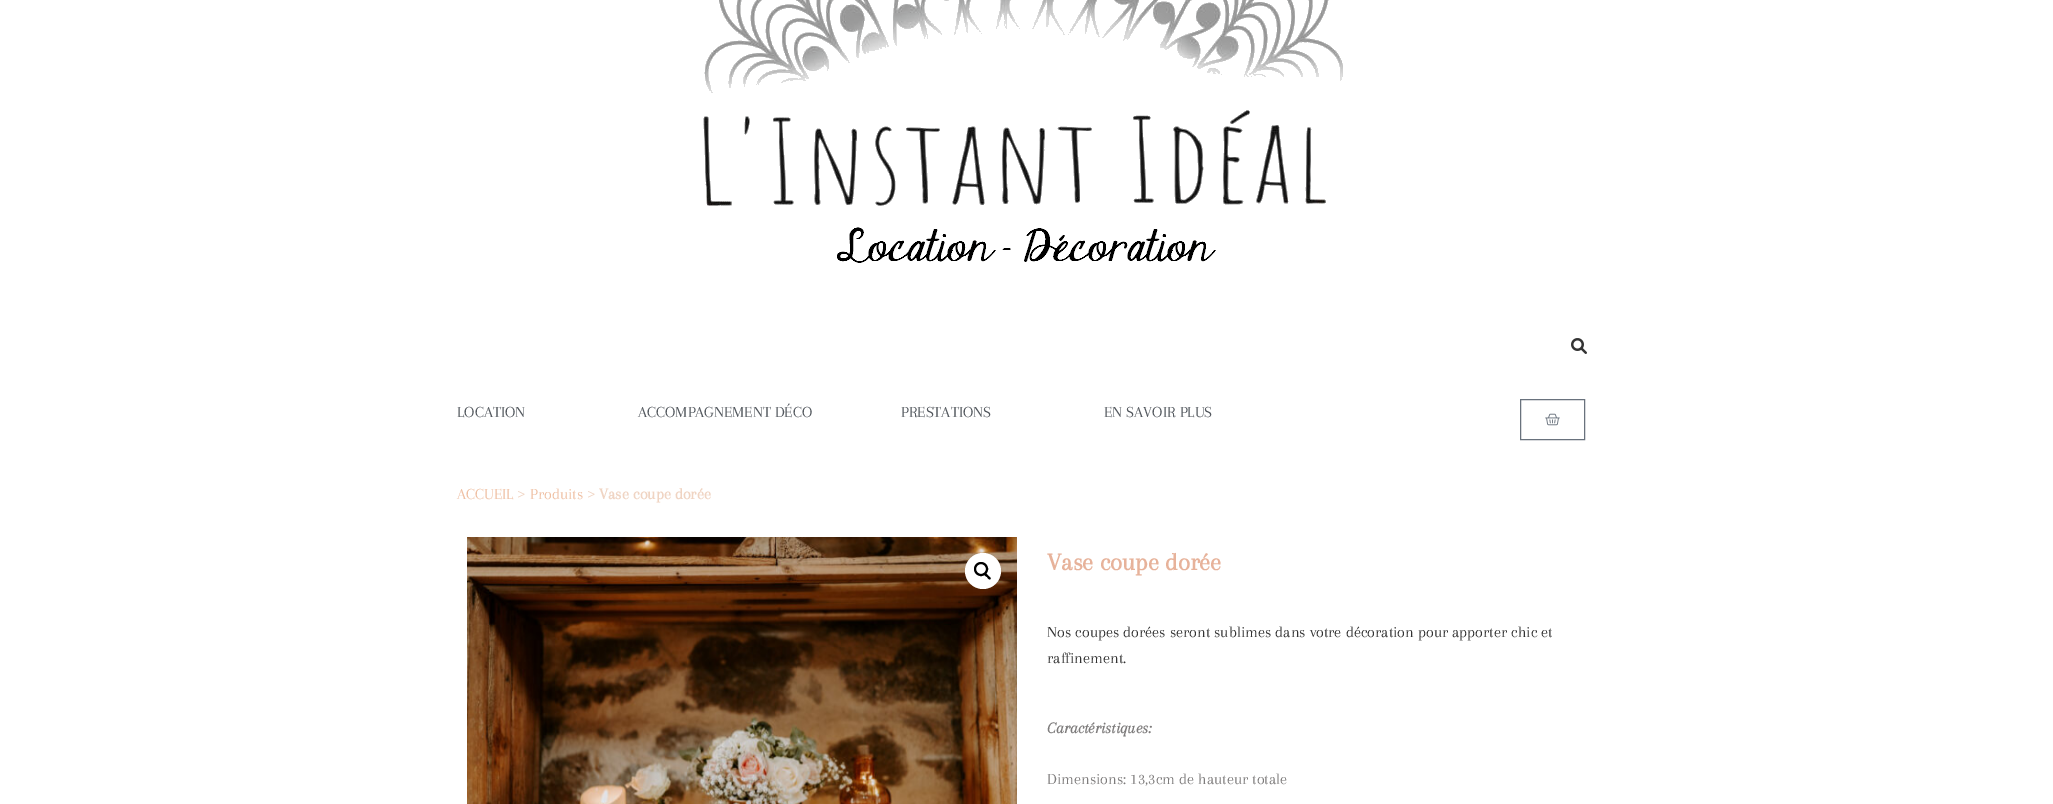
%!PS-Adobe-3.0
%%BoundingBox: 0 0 2053 804
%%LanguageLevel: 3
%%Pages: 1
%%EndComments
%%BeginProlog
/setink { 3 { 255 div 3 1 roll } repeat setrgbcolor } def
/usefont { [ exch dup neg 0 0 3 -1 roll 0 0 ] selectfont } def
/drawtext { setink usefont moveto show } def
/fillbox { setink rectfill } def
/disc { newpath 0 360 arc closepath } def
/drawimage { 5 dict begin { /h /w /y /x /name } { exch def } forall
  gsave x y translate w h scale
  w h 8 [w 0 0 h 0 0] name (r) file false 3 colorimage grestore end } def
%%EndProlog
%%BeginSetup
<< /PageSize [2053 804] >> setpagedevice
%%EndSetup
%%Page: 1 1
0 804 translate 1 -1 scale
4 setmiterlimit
0 0 2053 804 255 255 255 fillbox
(assets/img1.rgb) 703 0 640 263 drawimage
(assets/img2.rgb) 1571 338 16 16 drawimage
(LOCATION) 457 417 /Arapey-Regular 16 84 89 95 drawtext
(ACCOMPAGNEMENT DÉCO) 638 417 /Arapey-Regular 16 84 89 95 drawtext
(PRESTATIONS) 901 417 /Arapey-Regular 16 84 89 95 drawtext
(EN SAVOIR PLUS) 1104 417 /Arapey-Regular 16 84 89 95 drawtext
105 114 125 setink
1520.5 399.5 64 40 rectstroke
(assets/img3.rgb) 1545 413 15 13 drawimage
(ACCUEIL) 457 499 /Arapey-Regular 16 239 191 162 drawtext
(>) 517 499 /Arapey-Regular 16 240 212 194 drawtext
(Produits) 530 499 /Arapey-Regular 16 239 191 162 drawtext
(>) 587 499 /Arapey-Regular 16 240 212 194 drawtext
(Vase coupe dorée) 599 499 /Arapey-Bold 16 240 212 194 drawtext
(assets/img4.rgb) 467 537 550 267 drawimage
255 255 255 setink
983 571 18 disc fill
0 0 0 setink
2 setlinewidth
981 569 6 disc stroke
984.5 573.5 moveto 986 572.5 987.5 575 988 575.5 curveto 989 576.5 991.5 578 990.5 579 curveto 989 580.5 987.5 577.5 987 577 curveto 986 576.5 983.5 575 984.5 573.5 curveto closepath fill
(Vase coupe dorée) 1047 570 /Arapey-Bold 25 231 178 154 drawtext
(Nos coupes dorées seront sublimes dans votre décoration pour apporter chic et) 1047 637 /Arapey-Regular 16 51 51 51 drawtext
(raffinement.) 1047 663 /Arapey-Regular 16 51 51 51 drawtext
(Caractéristiques:) 1047 733 /Arapey-BoldItalic 16 126 124 124 drawtext
(Dimensions: 13,3cm de hauteur totale) 1047 784 /Arapey-Regular 16 126 124 124 drawtext
showpage
%%EOF
